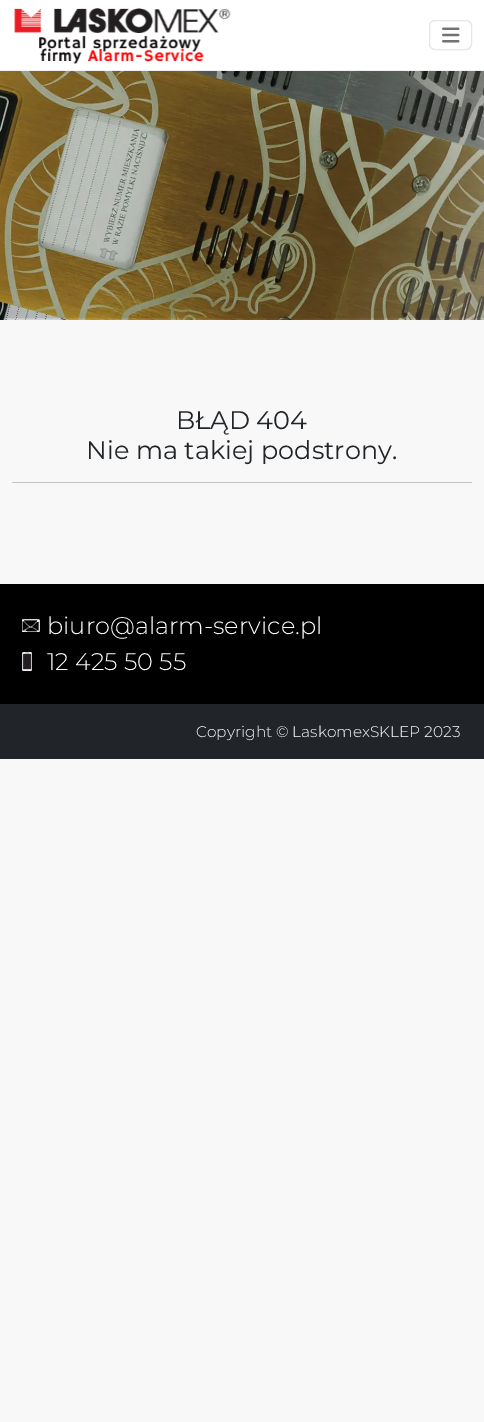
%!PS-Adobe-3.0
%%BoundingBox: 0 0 484 1422
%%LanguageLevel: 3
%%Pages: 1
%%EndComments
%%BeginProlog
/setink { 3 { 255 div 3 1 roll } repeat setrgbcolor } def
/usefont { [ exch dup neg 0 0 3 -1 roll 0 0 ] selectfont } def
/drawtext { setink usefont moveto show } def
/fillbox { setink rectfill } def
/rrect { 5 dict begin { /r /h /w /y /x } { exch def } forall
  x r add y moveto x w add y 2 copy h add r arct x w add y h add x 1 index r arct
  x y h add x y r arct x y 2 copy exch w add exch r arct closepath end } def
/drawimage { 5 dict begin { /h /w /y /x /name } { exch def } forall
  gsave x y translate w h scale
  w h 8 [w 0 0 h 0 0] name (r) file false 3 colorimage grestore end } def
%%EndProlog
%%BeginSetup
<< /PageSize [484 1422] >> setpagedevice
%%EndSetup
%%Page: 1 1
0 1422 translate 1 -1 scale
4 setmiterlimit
0 0 484 1422 248 248 248 fillbox
0 0 484 70 255 255 255 fillbox
0 70 484 1 240 240 240 fillbox
(assets/img1.rgb) 14 8 217 56 drawimage
230 230 230 setink
429.5 20.5 42 29 5.5 rrect stroke
(assets/img2.rgb) 442 27 18 16 drawimage
(assets/img3.rgb) 0 71 484 249 drawimage
(BŁĄD 404) 176 429 /Montserrat-Regular 25.5 33 37 41 drawtext
(Nie ma takiej podstrony.) 86 459 /Montserrat-Regular 25.5 33 37 41 drawtext
12 482 460 1 194 195 196 fillbox
0 584 484 120 0 0 0 fillbox
(assets/img4.rgb) 22 619 18 13 drawimage
(biuro@alarm-service.pl) 47 634 /Montserrat-Light 24 255 255 255 drawtext
(assets/img5.rgb) 22 652 10 19 drawimage
(12 425 50 55) 47 670 /Montserrat-Light 24 255 255 255 drawtext
0 704 484 55 33 37 41 fillbox
(Copyright © LaskomexSKLEP 2023) 196 737 /Montserrat-Light 15.4 255 255 255 drawtext
showpage
%%EOF
